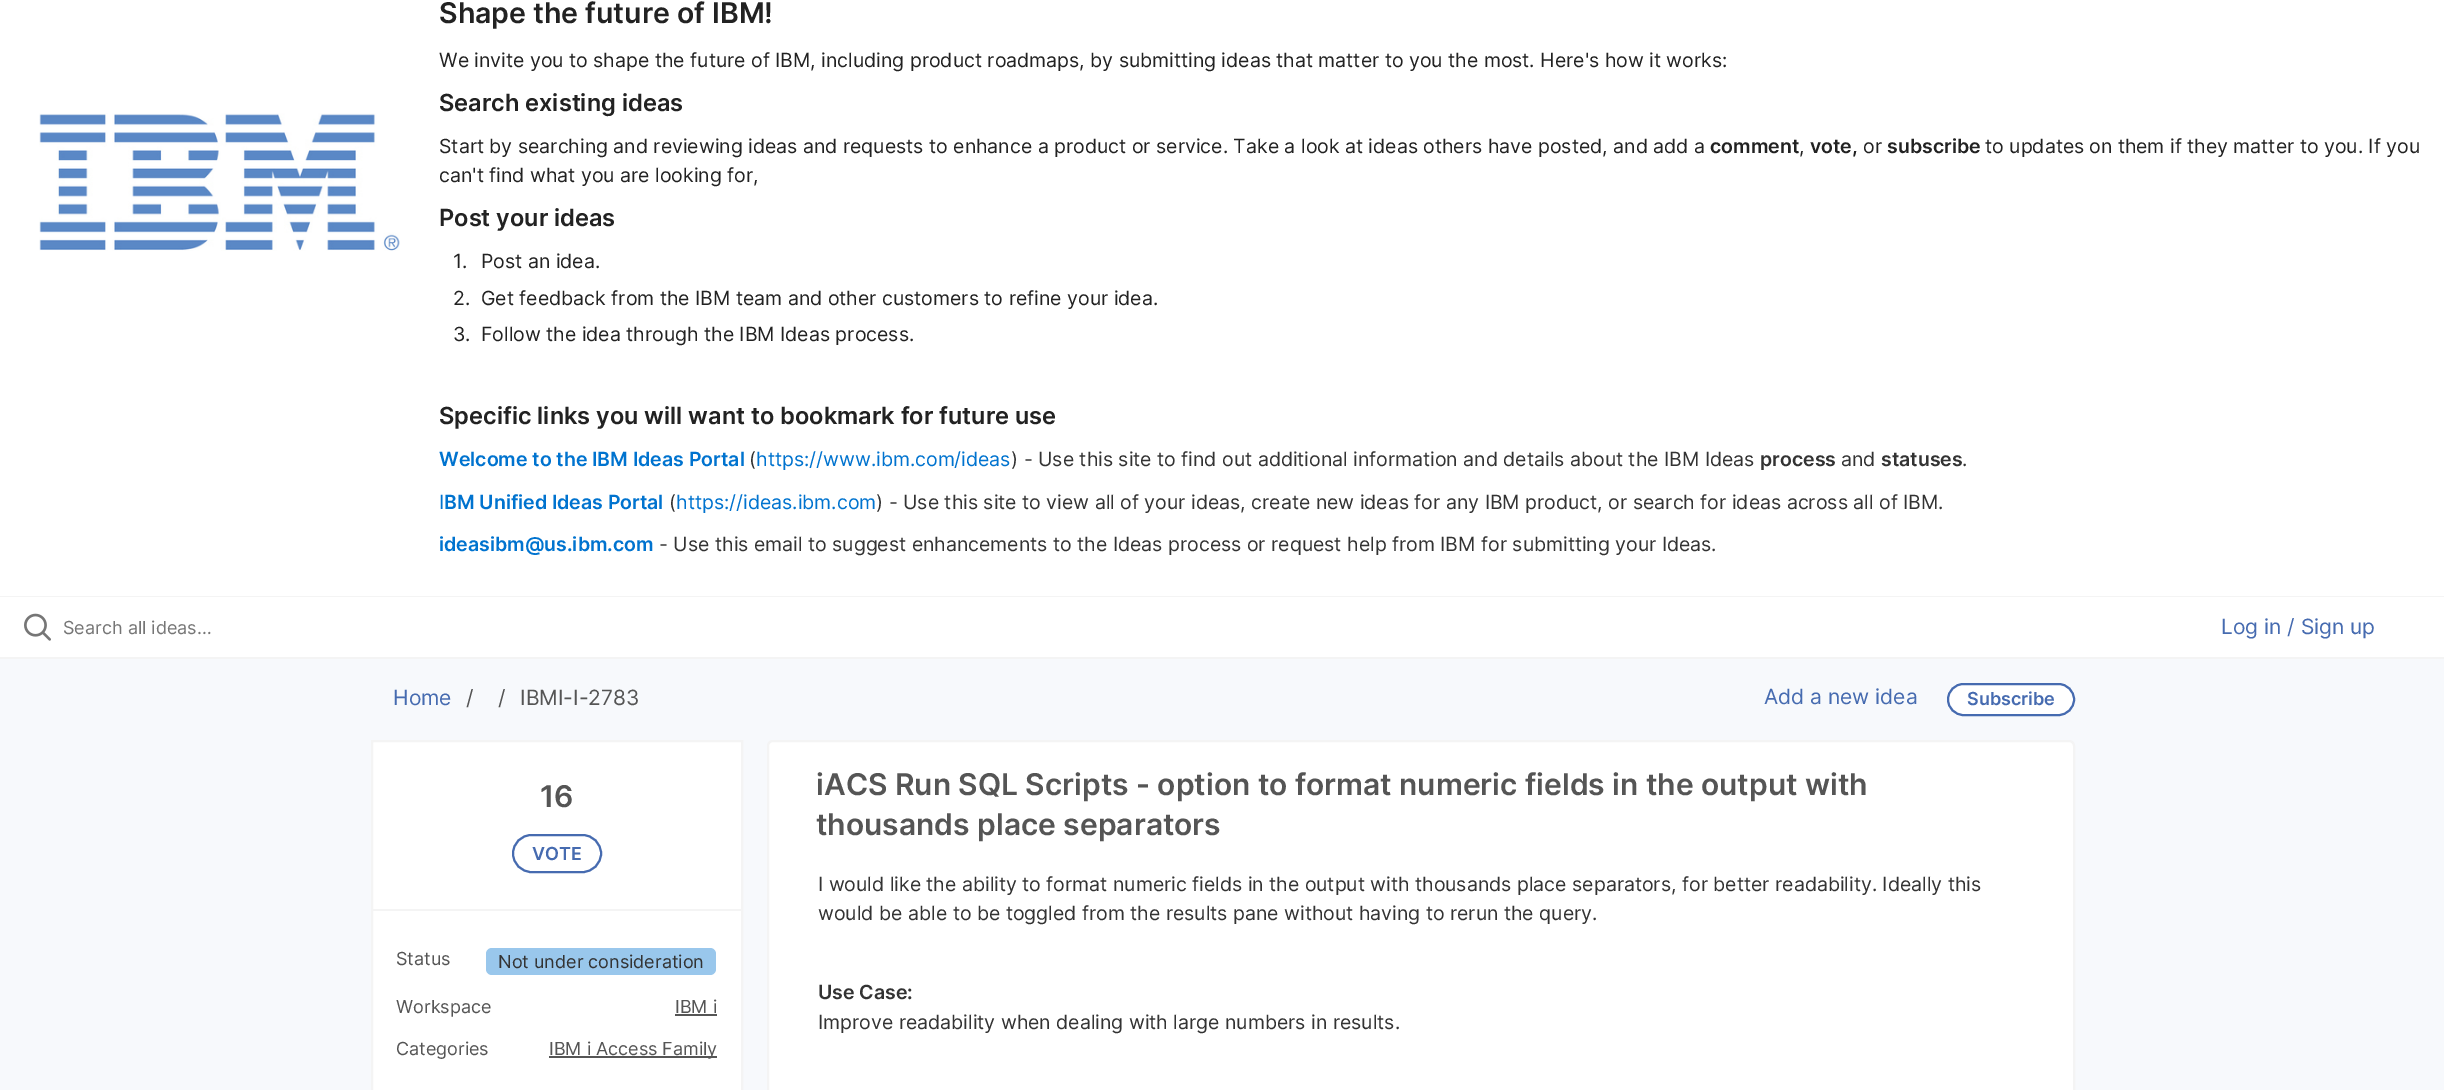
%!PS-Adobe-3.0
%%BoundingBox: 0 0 2444 1090
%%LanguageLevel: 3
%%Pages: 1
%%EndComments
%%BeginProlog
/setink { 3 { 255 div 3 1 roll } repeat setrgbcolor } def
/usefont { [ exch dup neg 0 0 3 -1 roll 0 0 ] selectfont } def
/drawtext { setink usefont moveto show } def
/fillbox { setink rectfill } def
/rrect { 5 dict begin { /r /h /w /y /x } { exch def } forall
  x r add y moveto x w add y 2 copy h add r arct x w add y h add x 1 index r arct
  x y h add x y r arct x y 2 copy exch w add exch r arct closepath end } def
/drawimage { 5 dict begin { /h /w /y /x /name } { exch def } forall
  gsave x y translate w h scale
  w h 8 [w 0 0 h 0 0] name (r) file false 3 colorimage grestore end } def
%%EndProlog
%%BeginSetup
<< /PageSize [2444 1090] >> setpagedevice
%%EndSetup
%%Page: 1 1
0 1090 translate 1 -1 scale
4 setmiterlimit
0 0 2444 1090 247 249 252 fillbox
0 0 2444 596 255 255 255 fillbox
0 596 2444 1 244 244 244 fillbox
(assets/img1.rgb) 39 113 361 138 drawimage
(Shape the future of IBM!) 439 23 /Inter-SemiBold 28.5 34 34 34 drawtext
(We invite you to shape the future of IBM, including product roadmaps, by submitting ideas that matter to you the most. Here's how it works:) 439 67 /Inter-Regular 19.5 34 34 34 drawtext
(Search existing ideas) 439 111 /Inter-SemiBold 23.6 34 34 34 drawtext
(Start by searching and reviewing ideas and requests to enhance a product or service. Take a look at ideas others have posted, and add a) 439 153 /Inter-Regular 19.5 34 34 34 drawtext
(comment) 1710 153 /Inter-SemiBold 19.5 34 34 34 drawtext
(,) 1799 153 /Inter-Regular 19.5 34 34 34 drawtext
(vote,) 1810 153 /Inter-SemiBold 19.5 34 34 34 drawtext
(or) 1863 153 /Inter-Regular 19.5 34 34 34 drawtext
(subscribe) 1887 153 /Inter-SemiBold 19.5 34 34 34 drawtext
(to updates) 1985 153 /Inter-Regular 19.5 34 34 34 drawtext
(on them if they matter to you. If you) 2089 153 /Inter-Regular 19.5 34 34 34 drawtext
(can't find what you are looking for,) 439 182 /Inter-Regular 19.5 34 34 34 drawtext
(Post your ideas) 439 226 /Inter-SemiBold 23.6 34 34 34 drawtext
(1.) 453 268 /Inter-Regular 19.5 34 34 34 drawtext
(Post an idea.) 481 268 /Inter-Regular 19.5 34 34 34 drawtext
(2.) 453 305 /Inter-Regular 19.5 34 34 34 drawtext
(Get feedback from the IBM team and other customers to refine your idea.) 481 305 /Inter-Regular 19.5 34 34 34 drawtext
(3.) 453 341 /Inter-Regular 19.5 34 34 34 drawtext
(Follow the idea through the IBM Ideas process.) 481 341 /Inter-Regular 19.5 34 34 34 drawtext
(Specific links you will want to bookmark for future use) 439 424 /Inter-SemiBold 23.6 34 34 34 drawtext
(Welcome to the IBM Ideas Portal) 439 466 /Inter-SemiBold 19.5 0 115 207 drawtext
(\() 749 466 /Inter-Regular 19.5 51 51 51 drawtext
(https://www.ibm.com/ideas) 756 466 /Inter-Regular 19.5 0 115 207 drawtext
(\) - Use this site to find out additional information and details about the IBM Ideas) 1011 466 /Inter-Regular 19.5 51 51 51 drawtext
(process) 1760 466 /Inter-SemiBold 19.5 51 51 51 drawtext
(and) 1841 466 /Inter-Regular 19.5 51 51 51 drawtext
(statuses) 1881 466 /Inter-SemiBold 19.5 51 51 51 drawtext
(.) 1962 466 /Inter-Regular 19.5 51 51 51 drawtext
(I) 439 509 /Inter-Regular 19.5 0 115 207 drawtext
(BM Unified Ideas Portal) 444 509 /Inter-SemiBold 19.5 0 115 207 drawtext
(\() 669 509 /Inter-Regular 19.5 51 51 51 drawtext
(https://ideas.ibm.com) 676 509 /Inter-Regular 19.5 0 115 207 drawtext
(\) - Use this site to view all of your ideas, create new ideas for any IBM product, or search for ideas across all of IBM.) 876 509 /Inter-Regular 19.5 51 51 51 drawtext
(ideasibm@us.ibm.com) 439 551 /Inter-SemiBold 19.5 0 115 207 drawtext
(- Use this email to suggest enhancements to the Ideas process or request help from IBM for submitting your Ideas.) 659 551 /Inter-Regular 19.5 51 51 51 drawtext
0 597 2444 60 255 255 255 fillbox
0 657 2444 2 244 244 244 fillbox
(assets/img2.rgb) 24 613 27 28 drawimage
(Search all ideas…) 63 634 /Inter-Regular 18 118 118 118 drawtext
(Log in / Sign up) 2221 634 /Inter-Regular 21 70 107 176 drawtext
(Home) 393 705 /Inter-Regular 21 70 107 176 drawtext
(/) 466 705 /Inter-Regular 21 85 85 85 drawtext
(/) 498 705 /Inter-Regular 21 85 85 85 drawtext
(IBMI-I-2783) 520 705 /Inter-Regular 21 85 85 85 drawtext
(Add a new idea) 1764 704 /Inter-Regular 21 70 107 176 drawtext
255 255 255 setink
1948 684 126 31 15.5 rrect gsave fill grestore
70 107 176 setink
2 setlinewidth
stroke
(Subscribe) 1967 705 /Inter-SemiBold 18 70 107 176 drawtext
255 255 255 setink
372 741 moveto 742 741 lineto 742 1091 lineto 372 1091 lineto closepath gsave fill grestore
244 244 244 setink
stroke
(16) 540 807 /Inter-SemiBold 30 85 85 85 drawtext
70 107 176 setink
513 835 88 37 18.5 rrect stroke
(VOTE) 532 860 /Inter-SemiBold 18 70 107 176 drawtext
372 909 369 2 244 244 244 fillbox
(Status) 396 965 /Inter-Regular 18 85 85 85 drawtext
153 199 236 setink
486 948 230 27 6 rrect fill
(Not under consideration) 498 968 /Inter-Regular 18 51 51 51 drawtext
(Workspace) 396 1013 /Inter-Regular 18 85 85 85 drawtext
(IBM i) 675 1013 /Inter-Regular 18 85 85 85 drawtext
675 1014 42 2 85 85 85 fillbox
(Categories) 396 1055 /Inter-Regular 18 85 85 85 drawtext
549 1056 168 2 85 85 85 fillbox
(IBM i Access Family) 549 1055 /Inter-Regular 18 85 85 85 drawtext
255 255 255 setink
768 741 1306 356 5 rrect gsave fill grestore
244 244 244 setink
stroke
(iACS Run SQL Scripts - option to format numeric fields in the output with) 816 795 /Inter-SemiBold 30 85 85 85 drawtext
(thousands place separators) 816 835 /Inter-SemiBold 30 85 85 85 drawtext
(I would like the ability to format numeric fields in the output with thousands place separators, for better readability. Ideally this) 818 891 /Inter-Regular 19.5 51 51 51 drawtext
(would be able to be toggled from the results pane without having to rerun the query.) 818 920 /Inter-Regular 19.5 51 51 51 drawtext
(Use Case:) 818 999 /Inter-SemiBold 19.5 51 51 51 drawtext
(Improve readability when dealing with large numbers in results.) 818 1029 /Inter-Regular 19.5 51 51 51 drawtext
showpage
%%EOF
